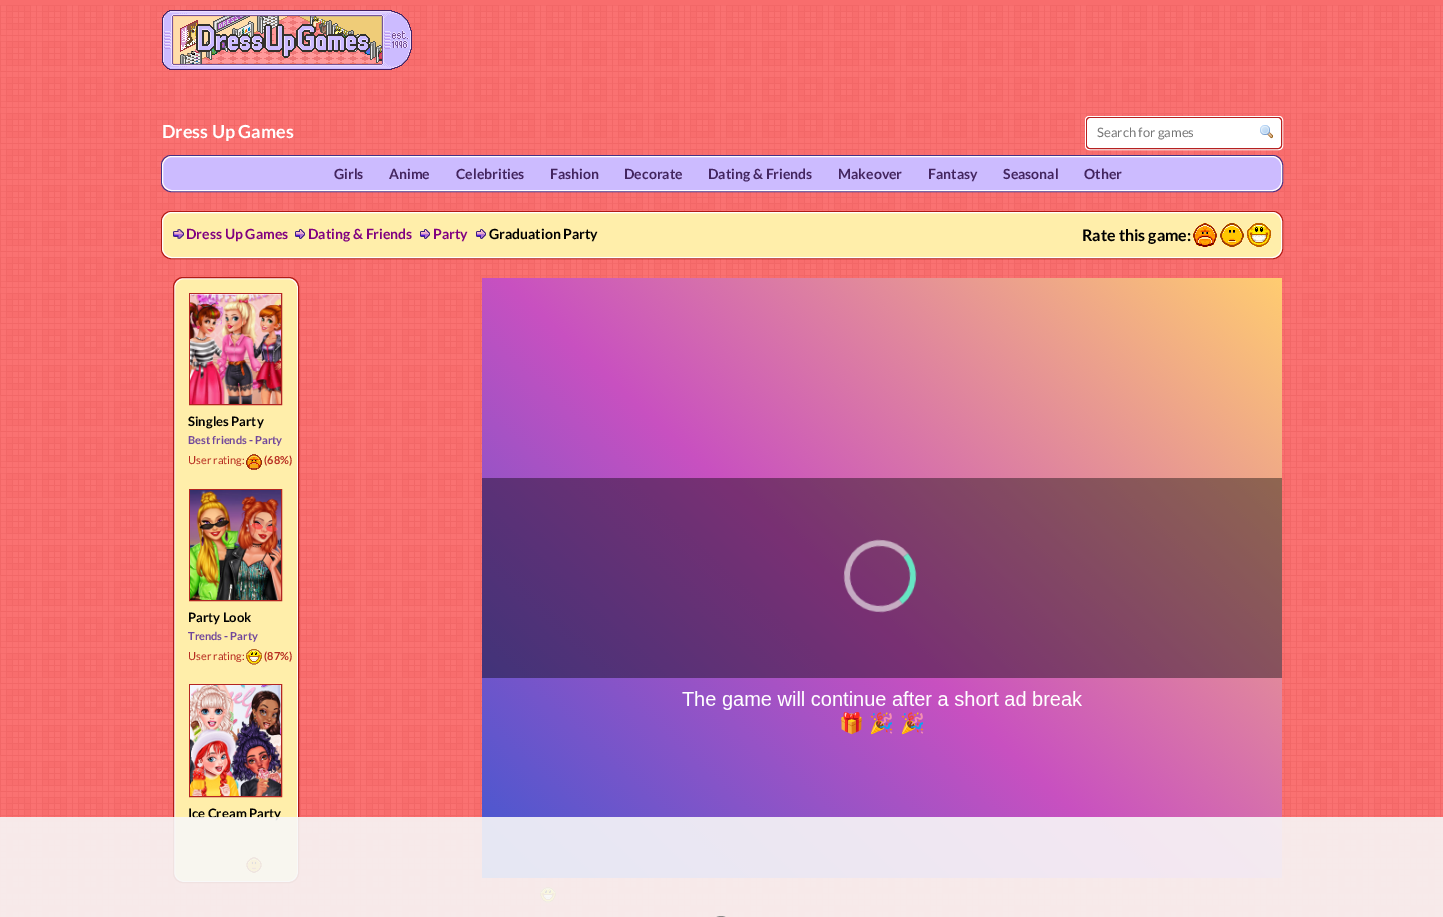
%!PS-Adobe-3.0
%%BoundingBox: 0 0 1443 917
%%LanguageLevel: 3
%%Pages: 1
%%EndComments
%%BeginProlog
/setink { 3 { 255 div 3 1 roll } repeat setrgbcolor } def
/usefont { [ exch dup neg 0 0 3 -1 roll 0 0 ] selectfont } def
/drawtext { setink usefont moveto show } def
/fillbox { setink rectfill } def
/setalpha { dup .setfillconstantalpha .setstrokeconstantalpha } def
/rrect { 5 dict begin { /r /h /w /y /x } { exch def } forall
  x r add y moveto x w add y 2 copy h add r arct x w add y h add x 1 index r arct
  x y h add x y r arct x y 2 copy exch w add exch r arct closepath end } def
/drawimage { 5 dict begin { /h /w /y /x /name } { exch def } forall
  gsave x y translate w h scale
  w h 8 [w 0 0 h 0 0] name (r) file false 3 colorimage grestore end } def
%%EndProlog
%%BeginSetup
<< /PageSize [1443 917] /PageUsesTransparency true >> setpagedevice
%%EndSetup
%%Page: 1 1
0 .pushpdf14devicefilter
0 917 translate 1 -1 scale
4 setmiterlimit
0 0 1443 917 248 109 109 fillbox
(assets/img1.rgb) 0 5 1443 912 drawimage
(assets/img2.rgb) 162 10 250 60 drawimage
(Dress Up Games) 162 138 /Lato-Bold 18 255 255 255 drawtext
1085.5 116.5 197 33 3.5 rrect stroke
182 33 33 setink
1086.5 117.5 195 31 3.5 rrect stroke
255 255 255 setink
1087 118 194 30 4 rrect fill
(Search for games) 1097 137 /Lato-Regular 13 117 117 117 drawtext
(assets/img3.rgb) 1260 125 13 14 drawimage
71 50 134 setink
161.5 155.5 1121 36 9.5 rrect stroke
204 187 255 setink
162.5 156.5 1119 34 9.5 rrect gsave fill grestore
255 255 255 setink
stroke
(Girls) 334 179 /Lato-Bold 14 67 37 95 drawtext
(Anime) 389 179 /Lato-Bold 14 67 37 95 drawtext
(Celebrities) 456 179 /Lato-Bold 14 67 37 95 drawtext
(Fashion) 550 179 /Lato-Bold 14 67 37 95 drawtext
(Decorate) 624 179 /Lato-Bold 14 67 37 95 drawtext
(Dating & Friends) 708 179 /Lato-Bold 14 67 37 95 drawtext
(Makeover) 838 179 /Lato-Bold 14 67 37 95 drawtext
(Fantasy) 928 179 /Lato-Bold 14 67 37 95 drawtext
(Seasonal) 1003 179 /Lato-Bold 14 67 37 95 drawtext
(Other) 1084 179 /Lato-Bold 14 67 37 95 drawtext
177 28 20 setink
161.5 211.5 1121 47 9.5 rrect stroke
255 238 170 setink
162.5 212.5 1119 45 9.5 rrect gsave fill grestore
255 255 255 setink
stroke
(assets/img4.rgb) 173 229 11 10 drawimage
(Dress Up Games) 186 239 /Lato-Bold 14 128 0 128 drawtext
(assets/img5.rgb) 295 229 10 10 drawimage
(Dating & Friends) 308 239 /Lato-Bold 14 128 0 128 drawtext
(assets/img5.rgb) 420 229 10 10 drawimage
(Party) 433 239 /Lato-Bold 14 128 0 128 drawtext
(assets/img5.rgb) 476 229 10 10 drawimage
(Graduation Party) 489 239 /Lato-Bold 14 0 0 0 drawtext
(Rate this game:) 1082 241 /Lato-Bold 16 0 0 0 drawtext
(assets/img6.rgb) 1193 223 24 24 drawimage
(assets/img7.rgb) 1220 223 24 24 drawimage
(assets/img8.rgb) 1247 223 24 24 drawimage
255 238 170 setink
174.5 278.5 123 603 9.5 rrect gsave fill grestore
255 255 255 setink
stroke
177 28 20 setink
173.5 277.5 125 605 9.5 rrect stroke
179 37 34 setink
189.5 293.5 92 111 rectstroke
(assets/img9.rgb) 190 294 91 110 drawimage
(Singles Party) 188 426 /Lato-Bold 13 0 0 0 drawtext
(Best friends - Party) 188 444 /Lato-Bold 11 113 71 155 drawtext
(User rating:) 188 464 /Lato-Regular 11 183 44 32 drawtext
(assets/img10.rgb) 246 454 16 16 drawimage
(\(68%\)) 264 464 /Lato-Bold 11 183 44 32 drawtext
179 37 34 setink
189.5 489.5 92 111 rectstroke
(assets/img11.rgb) 190 490 91 110 drawimage
(Party Look) 188 622 /Lato-Bold 13 0 0 0 drawtext
(Trends - Party) 188 640 /Lato-Bold 11 113 71 155 drawtext
(User rating:) 188 660 /Lato-Regular 11 183 44 32 drawtext
(assets/img12.rgb) 246 649 16 16 drawimage
(\(87%\)) 264 660 /Lato-Bold 11 183 44 32 drawtext
179 37 34 setink
189.5 684.5 92 112 rectstroke
(assets/img13.rgb) 190 685 91 111 drawimage
(Ice Cream Party) 188 818 /Lato-Bold 13 0 0 0 drawtext
(assets/img14.rgb) 246 857 16 16 drawimage
(assets/img15.rgb) 482 278 800 600 drawimage
(assets/img16.rgb) 540 887 16 16 drawimage
0.9 setalpha
0 817 1443 100 247 247 247 fillbox
1 setalpha
247 244 244 setink
710.5 916.5 21 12 10.5 rrect stroke
136 136 136 setink
710.5 916.5 21 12 10.5 rrect stroke
.poppdf14devicefilter showpage
%%EOF
